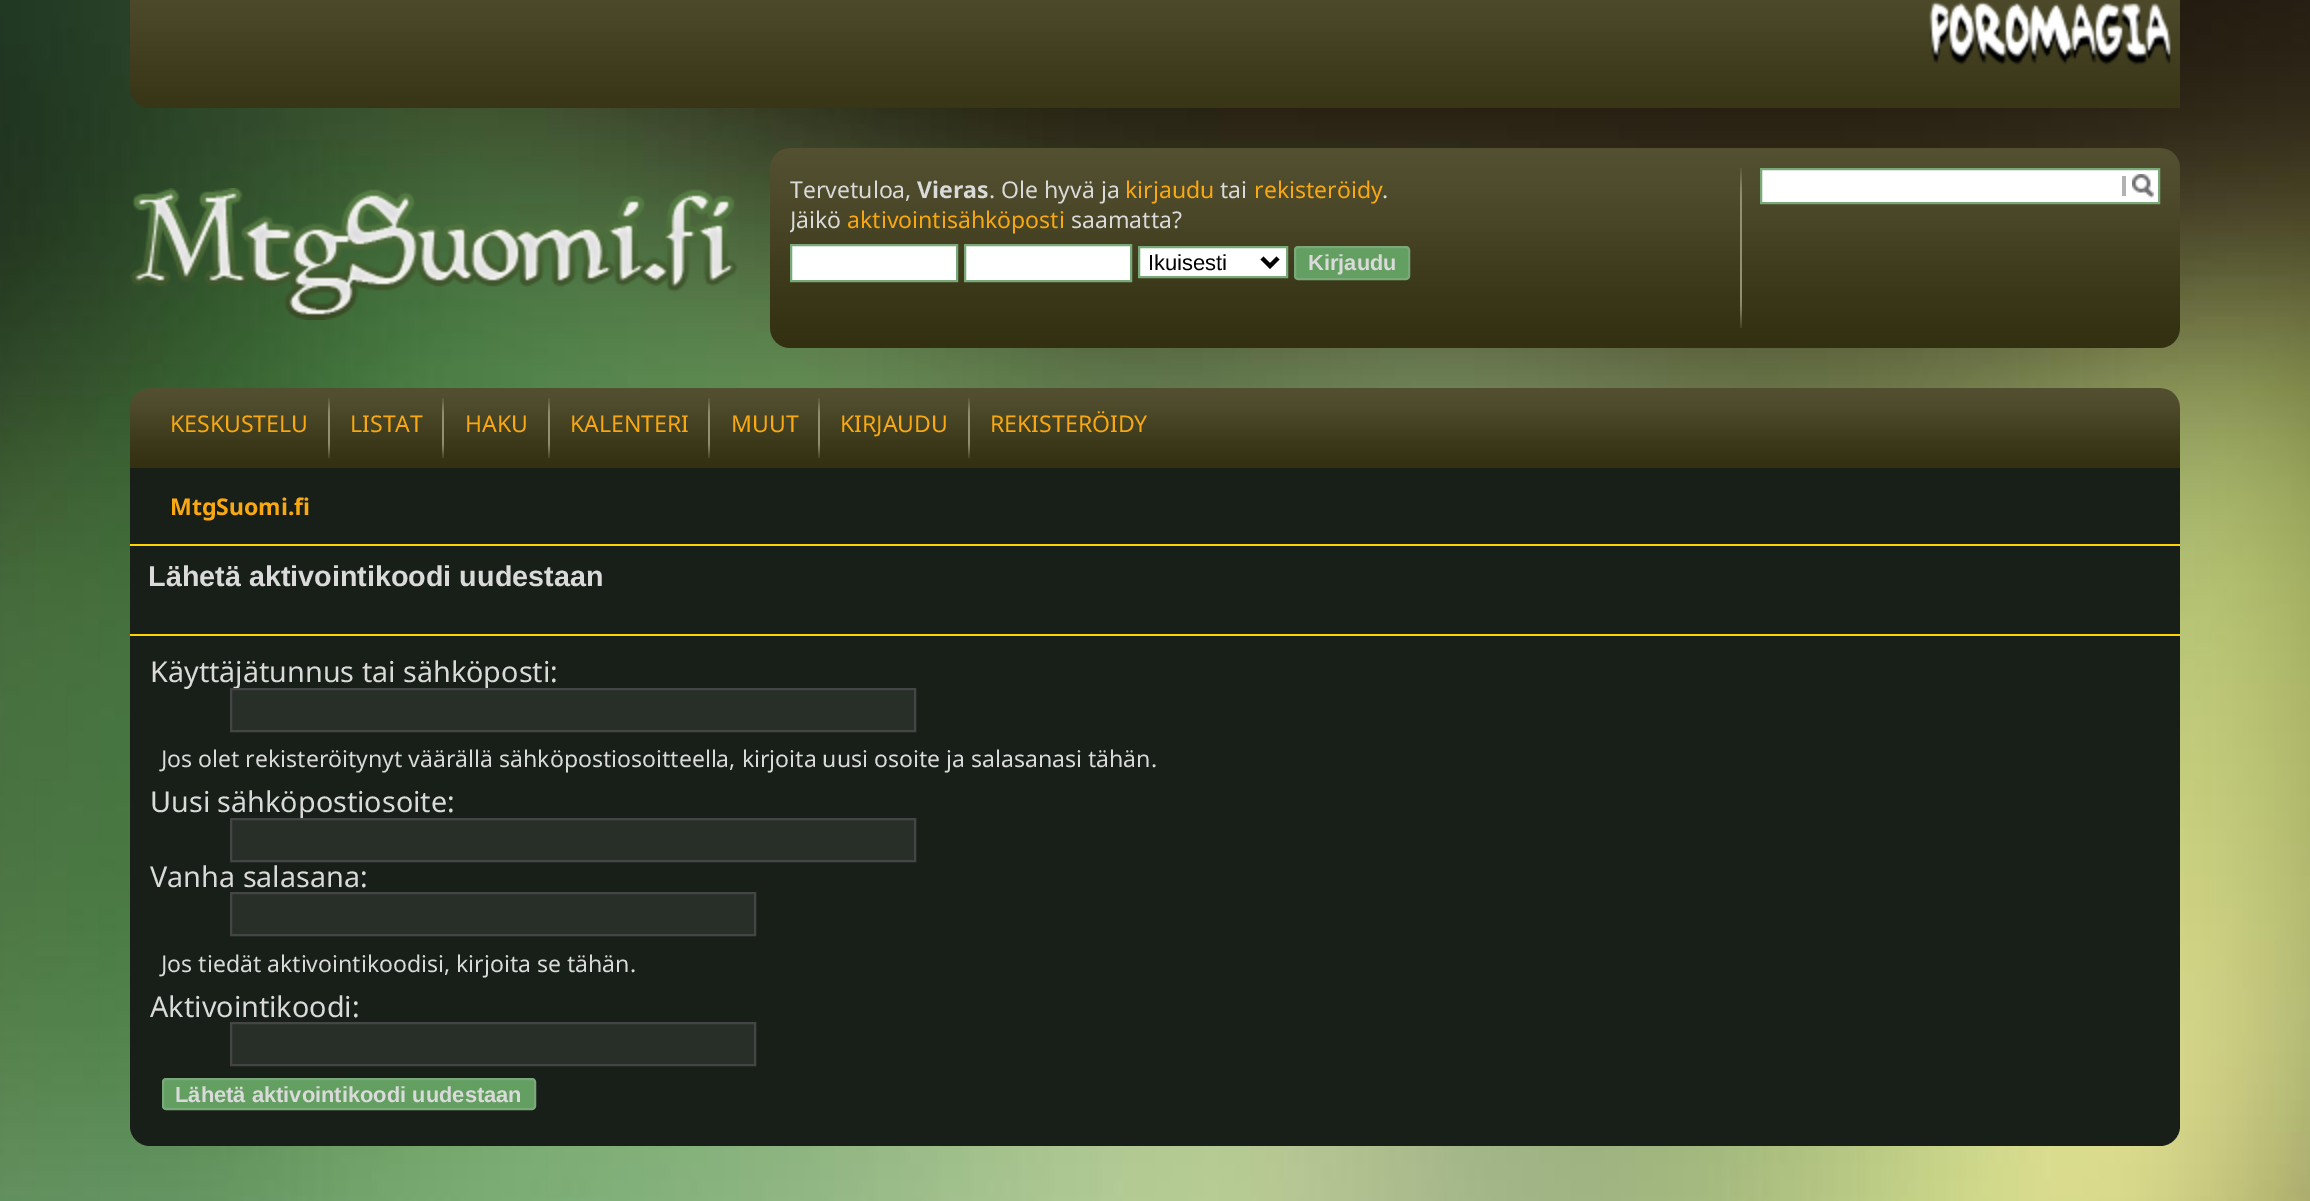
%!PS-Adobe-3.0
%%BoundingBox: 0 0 2310 1201
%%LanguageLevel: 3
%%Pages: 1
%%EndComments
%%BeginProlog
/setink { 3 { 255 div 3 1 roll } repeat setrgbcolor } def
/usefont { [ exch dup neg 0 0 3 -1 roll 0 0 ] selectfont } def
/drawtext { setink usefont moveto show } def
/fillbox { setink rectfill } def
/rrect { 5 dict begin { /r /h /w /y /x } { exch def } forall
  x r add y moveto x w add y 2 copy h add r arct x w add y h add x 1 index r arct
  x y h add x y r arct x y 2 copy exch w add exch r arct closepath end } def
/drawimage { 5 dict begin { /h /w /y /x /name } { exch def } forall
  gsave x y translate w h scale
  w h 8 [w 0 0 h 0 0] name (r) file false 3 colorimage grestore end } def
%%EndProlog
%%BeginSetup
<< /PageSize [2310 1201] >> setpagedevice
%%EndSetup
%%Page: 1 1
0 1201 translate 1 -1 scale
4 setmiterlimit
0 0 2310 1201 255 255 255 fillbox
(assets/img1.rgb) 0 0 2310 1201 drawimage
(assets/img2.rgb) 130 0 1790 108 drawimage
(assets/img3.rgb) 1920 0 260 108 drawimage
(assets/img4.rgb) 130 188 608 132 drawimage
(assets/img5.rgb) 770 148 1410 200 drawimage
(Tervetuloa,) 790 198 /NotoSans-Regular 23.05 217 218 217 drawtext
(Vieras) 917 198 /NotoSans-Bold 23.05 217 218 217 drawtext
(. Ole hyvä ja) 989 198 /NotoSans-Regular 23.05 217 218 217 drawtext
(kirjaudu) 1125 198 /NotoSans-Regular 23.05 249 168 17 drawtext
(tai) 1220 198 /NotoSans-Regular 23.05 217 218 217 drawtext
(rekisteröidy) 1254 198 /NotoSans-Regular 23.05 249 168 17 drawtext
(.) 1382 198 /NotoSans-Regular 23.05 217 218 217 drawtext
gsave
790 168 930 114 rectclip
(Jäikö) 790 228 /NotoSans-Regular 23.05 217 218 217 drawtext
grestore
(aktivointisähköposti) 847 228 /NotoSans-Regular 23.05 249 168 17 drawtext
(saamatta?) 1071 228 /NotoSans-Regular 23.05 217 218 217 drawtext
255 255 255 setink
791 245 moveto 957 245 lineto 957 281 lineto 791 281 lineto closepath gsave fill grestore
121 169 121 setink
2 setlinewidth
stroke
255 255 255 setink
965 245 moveto 1131 245 lineto 1131 281 lineto 965 281 lineto closepath gsave fill grestore
121 169 121 setink
stroke
255 255 255 setink
1139 247 moveto 1287 247 lineto 1287 277 lineto 1139 277 lineto closepath gsave fill grestore
121 169 121 setink
stroke
0 0 0 setink
4 setlinewidth
1262 258 moveto 1270 266 lineto 1278 258 lineto stroke
(Ikuisesti) 1148 270 /LiberationSans-Regular 21.9 0 0 0 drawtext
99 159 97 setink
1295 247 114 32 3 rrect gsave fill grestore
121 169 121 setink
2 setlinewidth
stroke
(Kirjaudu) 1308 270 /LiberationSans-Bold 21.9 217 218 217 drawtext
(assets/img6.rgb) 1740 168 2 160 drawimage
255 255 255 setink
1761 169 moveto 2159 169 lineto 2159 203 lineto 1761 203 lineto closepath gsave fill grestore
121 169 121 setink
stroke
2122 176 4 20 178 178 178 fillbox
(assets/img7.rgb) 2132 174 22 24 drawimage
(assets/img8.rgb) 130 388 2050 80 drawimage
(KESKUSTELU) 170 432 /NotoSans-Regular 23.05 249 168 17 drawtext
(assets/img9.rgb) 328 398 2 60 drawimage
(LISTAT) 350 432 /NotoSans-Regular 23.05 249 168 17 drawtext
(assets/img9.rgb) 442 398 2 60 drawimage
(HAKU) 465 432 /NotoSans-Regular 23.05 249 168 17 drawtext
(assets/img9.rgb) 548 398 2 60 drawimage
(KALENTERI) 570 432 /NotoSans-Regular 23.05 249 168 17 drawtext
(assets/img9.rgb) 708 398 2 60 drawimage
(MUUT) 731 432 /NotoSans-Regular 23.05 249 168 17 drawtext
(assets/img9.rgb) 818 398 2 60 drawimage
(KIRJAUDU) 840 432 /NotoSans-Regular 23.05 249 168 17 drawtext
(assets/img9.rgb) 968 398 2 60 drawimage
(REKISTERÖIDY) 990 432 /NotoSans-Regular 23.05 249 168 17 drawtext
24 31 24 setink
130 468 moveto 2180 468 lineto 2180 1126 lineto 2180 1137 2171 1146 2160 1146 curveto 150 1146 lineto 139 1146 130 1137 130 1126 curveto closepath fill
130 544 2050 2 255 210 2 fillbox
(MtgSuomi.fi) 170 515 /NotoSans-Bold 23.05 249 168 17 drawtext
(Lähetä aktivointikoodi uudestaan) 148 586 /LiberationSans-Bold 28.75 217 218 217 drawtext
130 634 2050 2 255 210 2 fillbox
(Käyttäjätunnus tai sähköposti:) 150 682 /NotoSans-Regular 28.75 217 218 217 drawtext
40 47 40 setink
231 689 moveto 915 689 lineto 915 731 lineto 231 731 lineto closepath gsave fill grestore
69 69 69 setink
stroke
(Jos olet rekisteröitynyt väärällä sähköpostiosoitteella, kirjoita uusi osoite ja salasanasi tähän.) 161 767 /NotoSans-Regular 23.05 217 218 217 drawtext
(Uusi sähköpostiosoite:) 150 812 /NotoSans-Regular 28.75 217 218 217 drawtext
40 47 40 setink
231 819 moveto 915 819 lineto 915 861 lineto 231 861 lineto closepath gsave fill grestore
69 69 69 setink
stroke
(Vanha salasana:) 150 887 /NotoSans-Regular 28.75 217 218 217 drawtext
40 47 40 setink
231 893 moveto 755 893 lineto 755 935 lineto 231 935 lineto closepath gsave fill grestore
69 69 69 setink
stroke
(Jos tiedät aktivointikoodisi, kirjoita se tähän.) 161 972 /NotoSans-Regular 23.05 217 218 217 drawtext
(Aktivointikoodi:) 150 1017 /NotoSans-Regular 28.75 217 218 217 drawtext
40 47 40 setink
231 1023 moveto 755 1023 lineto 755 1065 lineto 231 1065 lineto closepath gsave fill grestore
69 69 69 setink
stroke
99 159 97 setink
163 1079 372 30 3 rrect gsave fill grestore
121 169 121 setink
stroke
(Lähetä aktivointikoodi uudestaan) 175 1102 /LiberationSans-Bold 21.9 217 218 217 drawtext
showpage
%%EOF
